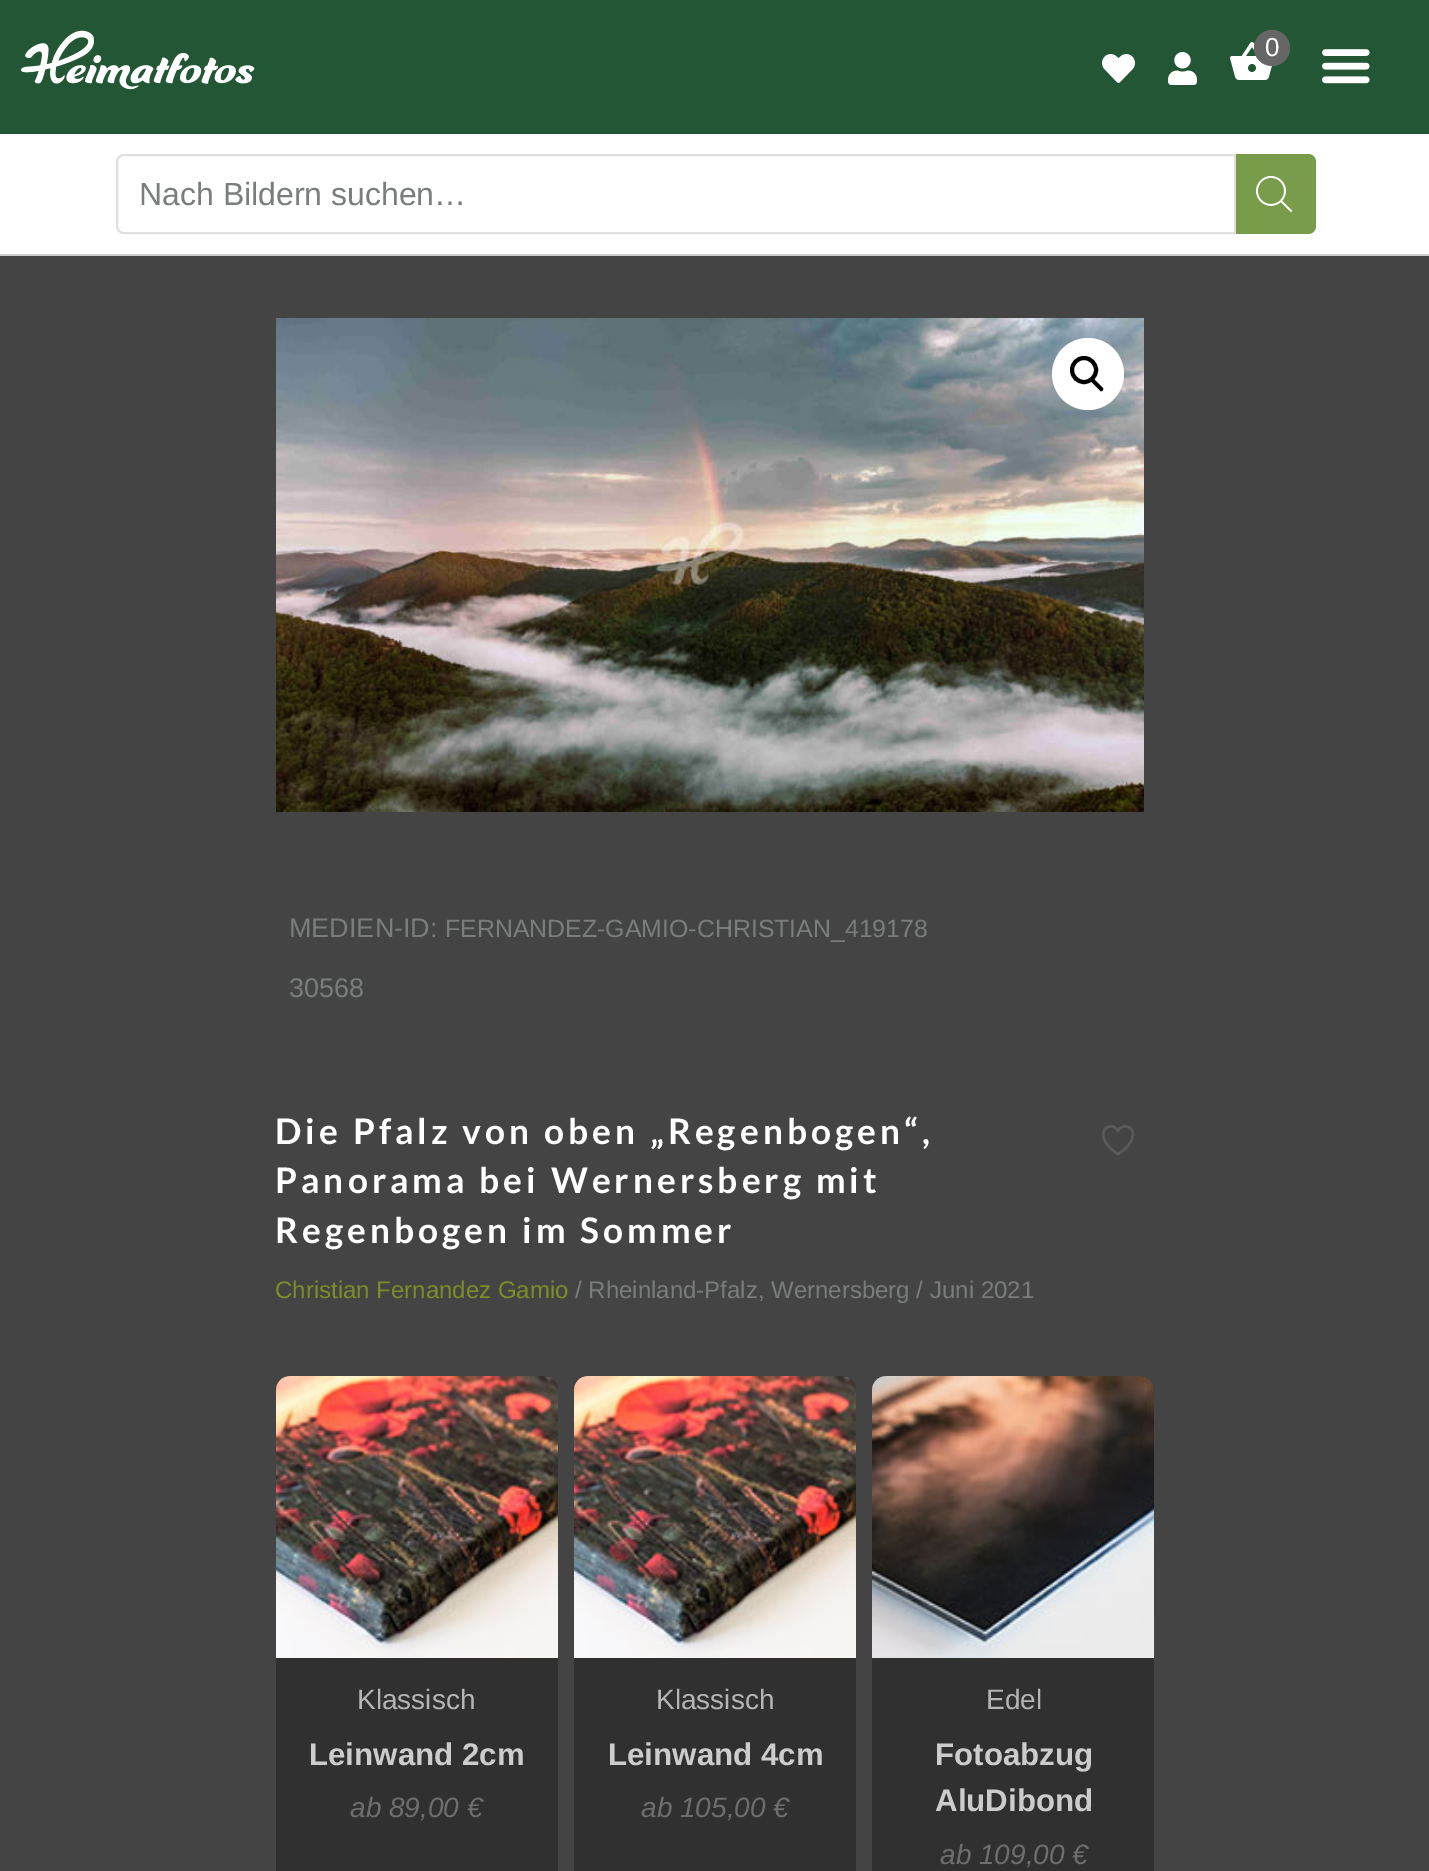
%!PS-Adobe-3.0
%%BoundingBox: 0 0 1429 1871
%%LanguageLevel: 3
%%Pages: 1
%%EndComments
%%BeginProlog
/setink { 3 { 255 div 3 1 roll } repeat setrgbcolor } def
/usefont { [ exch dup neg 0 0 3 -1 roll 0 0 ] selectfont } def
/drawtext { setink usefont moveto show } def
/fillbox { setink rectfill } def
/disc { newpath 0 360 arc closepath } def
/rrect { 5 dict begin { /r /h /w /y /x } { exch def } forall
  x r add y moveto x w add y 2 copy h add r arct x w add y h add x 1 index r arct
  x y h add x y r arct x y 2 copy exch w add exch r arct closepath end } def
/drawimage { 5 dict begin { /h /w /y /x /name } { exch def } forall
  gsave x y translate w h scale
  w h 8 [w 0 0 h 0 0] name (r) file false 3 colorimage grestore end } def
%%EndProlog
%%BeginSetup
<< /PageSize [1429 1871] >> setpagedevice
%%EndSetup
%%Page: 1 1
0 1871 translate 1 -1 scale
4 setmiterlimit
0 0 1429 1871 255 255 255 fillbox
0 0 1429 134 35 86 53 fillbox
(assets/img1.rgb) 20 30 235 60 drawimage
(assets/img2.rgb) 1230 42 43 38 drawimage
102 102 102 setink
1272 48 18 disc fill
(0) 1265 56 /LiberationSans-Regular 26 255 255 255 drawtext
(assets/img3.rgb) 1102 54 33 29 drawimage
(assets/img4.rgb) 1168 52 29 33 drawimage
(assets/img5.rgb) 1322 49 48 35 drawimage
0 254 1429 2 204 204 204 fillbox
224 224 224 setink
2 setlinewidth
124 155 moveto 1235 155 lineto 1235 233 lineto 124 233 lineto 120 233 117 230 117 226 curveto 117 162 lineto 117 158 120 155 124 155 curveto closepath stroke
(Nach Bildern suchen…) 139 205 /LiberationSans-Regular 32 122 125 125 drawtext
121 156 75 setink
1236 154 moveto 1308 154 lineto 1312.5 154 1316 157.5 1316 162 curveto 1316 226 lineto 1316 230.5 1312.5 234 1308 234 curveto 1236 234 lineto closepath fill
(assets/img6.rgb) 1256 176 37 37 drawimage
0 256 1429 1615 68 68 68 fillbox
(assets/img7.rgb) 276 318 868 494 drawimage
255 255 255 setink
1088 374 36 disc fill
0 0 0 setink
4 setlinewidth
1084 370 12 disc stroke
1091.5 379 moveto 1092 378.5 1093.5 378.5 1094 379 curveto 1102.5 387.5 lineto 1103.5 388.5 1103.5 390 1102.5 390.5 curveto 1102 391.5 1100.5 391.5 1100 390.5 curveto 1091.5 382 lineto 1090.5 381.5 1090.5 380 1091.5 379 curveto closepath fill
(MEDIEN-ID:) 289 937 /LiberationSans-Regular 27 122 125 125 drawtext
(FERNANDEZ-GAMIO-CHRISTIAN_419178) 445 937 /LiberationSans-Regular 24.9 122 125 125 drawtext
(30568) 289 997 /LiberationSans-Regular 27 122 125 125 drawtext
/Lato-Bold 35.25 usefont
255 255 255 setink
275 1144 moveto 4 0 (Die Pfalz von oben „Regenbogen“,) ashow
275 1193 moveto 4 0 (Panorama bei Wernersberg mit) ashow
275 1243 moveto 4 0 (Regenbogen im Sommer) ashow
90 90 90 setink
2.5 setlinewidth
1 setlinecap
1 setlinejoin
1133 1134 moveto 1133 1125.5 1121 1123.5 1118 1131 curveto 1114 1121.5 1097 1127 1105.5 1142 curveto 1108 1147 1113 1151 1118 1154 curveto 1118 1154 1133 1146 1133 1134 curveto closepath stroke
(Christian Fernandez Gamio) 275 1298 /LiberationSans-Regular 24 125 141 39 drawtext
(/ Rheinland-Pfalz, Wernersberg / Juni 2021) 575 1298 /LiberationSans-Regular 24 122 125 125 drawtext
48 48 48 setink
276 1376 282 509 14 rrect fill
(assets/img8.rgb) 276 1376 282 282 drawimage
(Klassisch) 357 1709 /LiberationSans-Regular 28 181 181 181 drawtext
(Leinwand 2cm) 309 1765 /LiberationSans-Bold 31.25 204 204 204 drawtext
(ab 89,00 €) 350 1817 /LiberationSans-Italic 28 110 110 110 drawtext
48 48 48 setink
574 1376 282 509 14 rrect fill
(assets/img9.rgb) 574 1376 282 282 drawimage
(Klassisch) 656 1709 /LiberationSans-Regular 28 181 181 181 drawtext
(Leinwand 4cm) 608 1765 /LiberationSans-Bold 31.25 204 204 204 drawtext
(ab 105,00 €) 641 1817 /LiberationSans-Italic 28 110 110 110 drawtext
48 48 48 setink
872 1376 282 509 14 rrect fill
(assets/img10.rgb) 872 1376 282 282 drawimage
(Edel) 986 1709 /LiberationSans-Regular 28 181 181 181 drawtext
(Fotoabzug) 935 1765 /LiberationSans-Bold 31.25 204 204 204 drawtext
(AluDibond) 935 1811 /LiberationSans-Bold 31.25 204 204 204 drawtext
(ab 109,00 €) 940 1864 /LiberationSans-Italic 28 110 110 110 drawtext
showpage
%%EOF
